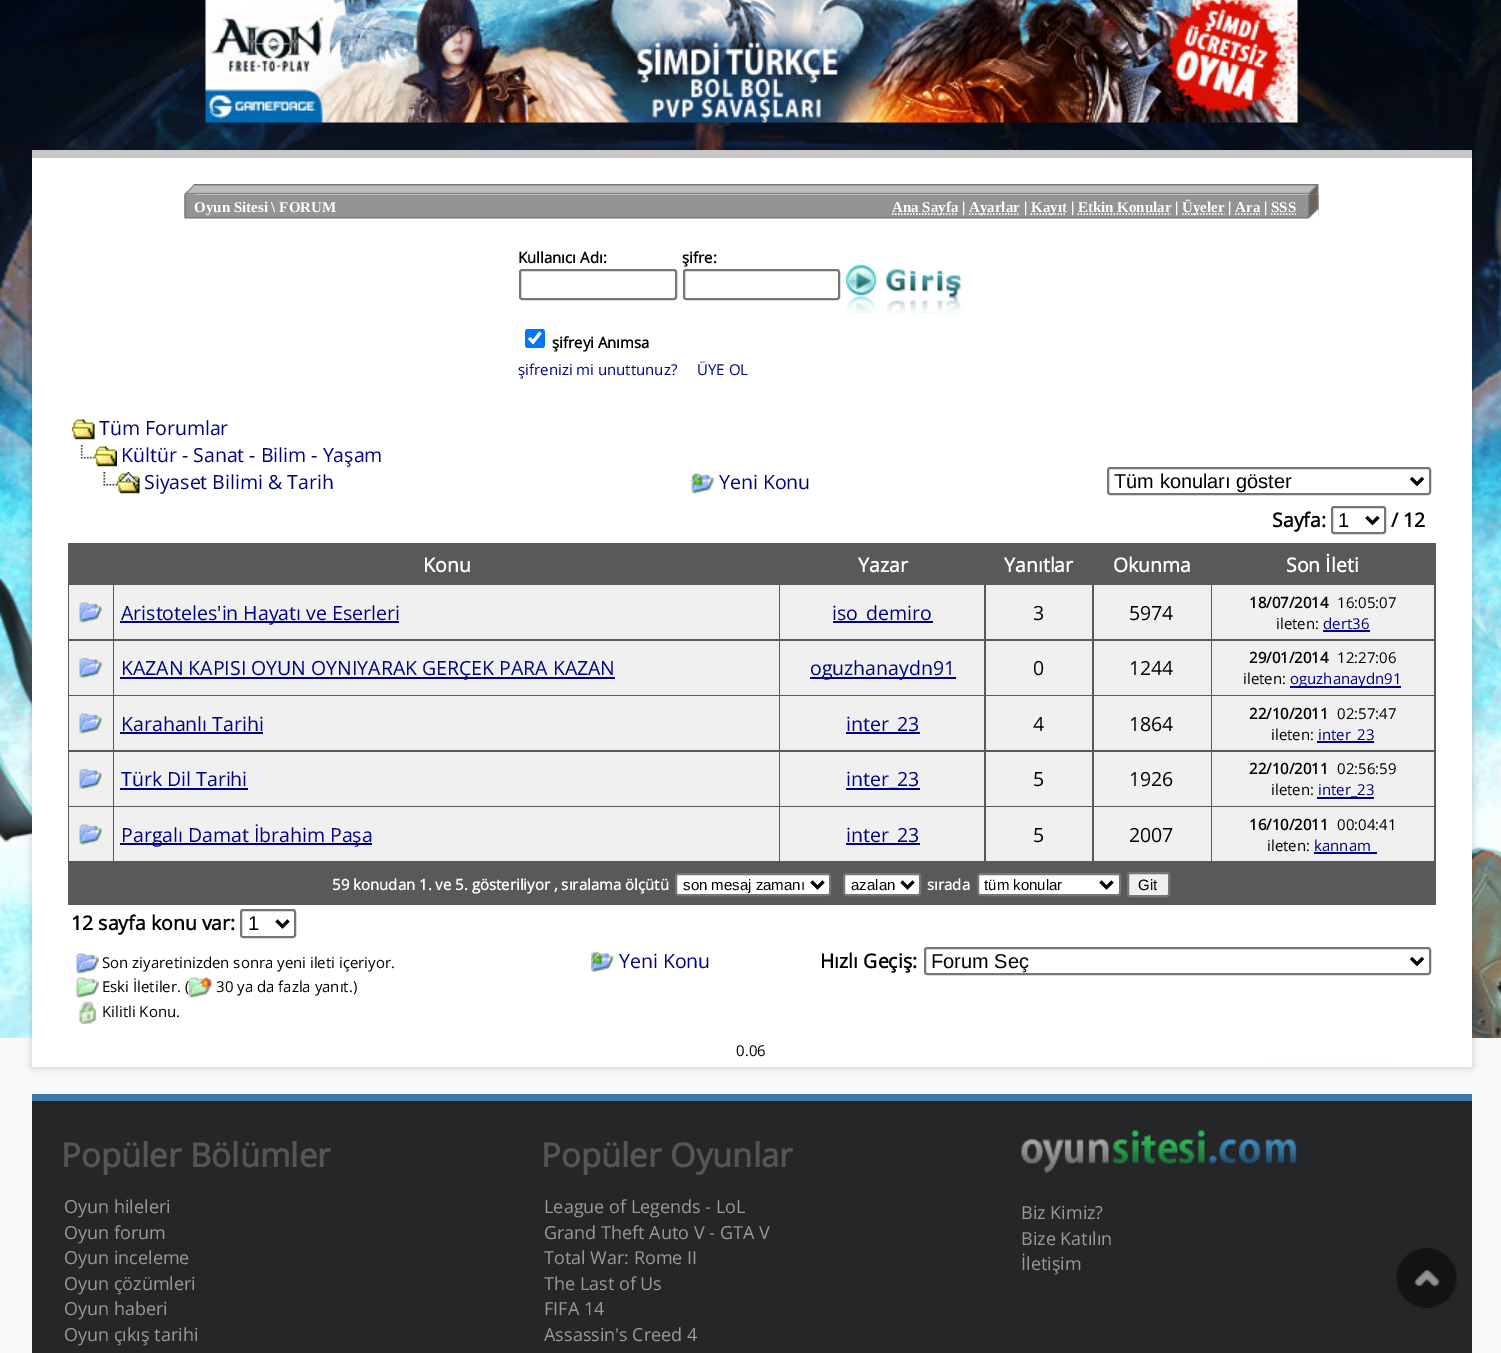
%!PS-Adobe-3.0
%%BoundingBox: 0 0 1501 1353
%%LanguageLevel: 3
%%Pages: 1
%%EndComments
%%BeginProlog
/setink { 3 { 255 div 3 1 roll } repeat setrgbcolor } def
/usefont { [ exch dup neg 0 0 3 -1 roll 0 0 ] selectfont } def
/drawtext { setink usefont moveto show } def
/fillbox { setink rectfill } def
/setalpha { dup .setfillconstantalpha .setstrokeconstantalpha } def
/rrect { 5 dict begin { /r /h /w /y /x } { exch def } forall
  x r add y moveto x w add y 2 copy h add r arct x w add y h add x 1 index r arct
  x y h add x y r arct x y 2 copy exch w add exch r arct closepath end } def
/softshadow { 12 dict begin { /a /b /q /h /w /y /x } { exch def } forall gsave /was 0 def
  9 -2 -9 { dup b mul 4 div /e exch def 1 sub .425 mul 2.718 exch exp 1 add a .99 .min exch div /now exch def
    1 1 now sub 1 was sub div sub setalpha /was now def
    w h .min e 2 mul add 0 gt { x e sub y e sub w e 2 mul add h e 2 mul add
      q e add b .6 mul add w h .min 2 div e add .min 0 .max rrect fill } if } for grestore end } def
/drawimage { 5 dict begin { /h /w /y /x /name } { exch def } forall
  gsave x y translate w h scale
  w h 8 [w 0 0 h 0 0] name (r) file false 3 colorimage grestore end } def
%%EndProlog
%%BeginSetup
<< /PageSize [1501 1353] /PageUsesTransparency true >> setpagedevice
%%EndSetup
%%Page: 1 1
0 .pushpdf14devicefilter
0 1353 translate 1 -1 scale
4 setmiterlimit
0 0 1501 1353 249 249 249 fillbox
(assets/img1.rgb) 0 0 1501 1038 drawimage
(assets/img2.rgb) 205 0 1093 123 drawimage
0 0 0 setink
32 150 1440 917 0 4 0.2 softshadow
32 158 1440 909 255 255 255 fillbox
32 150 1440 8 198 198 198 fillbox
(assets/img4.rgb) 184 194 11 23 drawimage
(assets/img6.rgb) 1308 194 11 23 drawimage
(assets/img3.rgb) 184 184 1135 11 drawimage
(assets/img5.rgb) 184 194 11 23 drawimage
195 195 1113 22 148 148 148 fillbox
(Oyun Sitesi \\ FORUM) 194 212 /LiberationSerif-Bold 15 255 255 255 drawtext
1.5 setlinewidth
[1.5 1.5] 0 setdash
892 214 moveto 958 214 lineto stroke
(Ana Sayfa |) 892 212 /LiberationSerif-Bold 15 255 255 255 drawtext
969 214 moveto 1020 214 lineto stroke
(Ayarlar |) 969 212 /LiberationSerif-Bold 15 255 255 255 drawtext
1030.5 214 moveto 1066.5 214 lineto stroke
(Kayıt | Etkin Konular |) 1031 212 /LiberationSerif-Bold 15 255 255 255 drawtext
1077.5 214 moveto 1171 214 lineto stroke
1182 214 moveto 1224.5 214 lineto stroke
(Üyeler | Ara | SSS) 1182 212 /LiberationSerif-Bold 15 255 255 255 drawtext
1235 214 moveto 1260 214 lineto 1271 214 moveto 1296 214 lineto stroke
(assets/img7.rgb) 1308 194 11 23 drawimage
(assets/img8.rgb) 184 217 1126 2 drawimage
(Kullanıcı Adı:) 518 263 /OpenSans-Bold 15 0 0 0 drawtext
118 118 118 setink
2 setlinewidth
[] 0 setdash
520 270 156 29 2 rrect stroke
(şifre:) 682 263 /OpenSans-Bold 15 0 0 0 drawtext
118 118 118 setink
684 270 155 29 2 rrect stroke
(assets/img9.rgb) 846 264 116 50 drawimage
0 117 255 setink
525 329 20 19 3 rrect fill
255 255 255 setink
3.1 setlinewidth
529 338 moveto 533 342 lineto 540.5 332.5 lineto stroke
(şifreyi Anımsa) 552 348 /OpenSans-Bold 15 0 0 0 drawtext
(şifrenizi mi unuttunuz?) 518 375 /OpenSans-Regular 15 0 0 128 drawtext
(ÜYE OL) 697 375 /OpenSans-Regular 15 0 0 128 drawtext
(assets/img10.rgb) 72 419 23 21 drawimage
(Tüm Forumlar) 99 435 /OpenSans-Regular 19.5 0 0 128 drawtext
(assets/img11.rgb) 80 445 15 14 drawimage
(assets/img12.rgb) 94 446 23 21 drawimage
(Kültür - Sanat - Bilim - Yaşam) 121 462 /OpenSans-Regular 19.5 0 0 128 drawtext
(assets/img13.rgb) 103 472 14 14 drawimage
(assets/img14.rgb) 117 472 23 22 drawimage
(Siyaset Bilimi & Tarih) 144 489 /OpenSans-Regular 19.5 0 0 128 drawtext
(assets/img15.rgb) 691 473 23 21 drawimage
(Yeni Konu) 719 489 /OpenSans-Regular 19.5 0 0 128 drawtext
118 118 118 setink
2 setlinewidth
1108 468 322 26 2 rrect stroke
0 0 0 setink
3 setlinewidth
1411 478 moveto 1417 484 lineto 1423 478 lineto stroke
(Tüm konuları göster) 1114 488 /LiberationSans-Regular 20 0 0 0 drawtext
(Sayfa:) 1272 527 /OpenSans-Bold 19.5 0 0 0 drawtext
118 118 118 setink
2 setlinewidth
1332 507 53 26 2 rrect stroke
0 0 0 setink
3 setlinewidth
1366.5 517 moveto 1372.5 523 lineto 1378.5 517 lineto stroke
(1) 1338 527 /LiberationSans-Regular 20 0 0 0 drawtext
(/ 12) 1391 527 /OpenSans-Bold 19.5 0 0 0 drawtext
68 543 1368 362 89 89 91 fillbox
(Konu) 423 572 /OpenSans-Bold 19.5 255 255 255 drawtext
(Yazar) 858 572 /OpenSans-Bold 19.5 255 255 255 drawtext
(Yanıtlar) 1004 572 /OpenSans-Bold 19.5 255 255 255 drawtext
(Okunma) 1113 572 /OpenSans-Bold 19.5 255 255 255 drawtext
(Son İleti) 1286 572 /OpenSans-Bold 19.5 255 255 255 drawtext
69 585 44 54 240 240 240 fillbox
(assets/img16.rgb) 79 602 23 21 drawimage
114 585 665 54 240 240 240 fillbox
120 621 279 2 0 0 128 fillbox
(Aristoteles'in Hayatı ve Eserleri) 121 620 /OpenSans-Regular 19.5 0 0 128 drawtext
780 585 204 54 240 240 240 fillbox
833 621 100 2 0 0 128 fillbox
(iso_demiro) 832 620 /OpenSans-Regular 19.5 0 0 128 drawtext
986 585 106 54 240 240 240 fillbox
(3) 1033 620 /OpenSans-Regular 19.5 0 0 0 drawtext
1094 585 117 54 240 240 240 fillbox
(5974) 1129 620 /OpenSans-Regular 19.5 0 0 0 drawtext
1212 585 222 54 240 240 240 fillbox
(18/07/2014) 1249 608 /OpenSans-Bold 15 0 0 0 drawtext
(16:05:07) 1337 608 /OpenSans-Regular 15 0 0 0 drawtext
(ileten:) 1276 629 /OpenSans-Regular 15 0 0 0 drawtext
(dert36) 1323 629 /OpenSans-Regular 15 0 0 128 drawtext
1323 630 47 2 0 0 128 fillbox
69 641 44 54 240 240 240 fillbox
(assets/img17.rgb) 79 657 23 21 drawimage
114 641 665 54 240 240 240 fillbox
120 677 495 2 0 0 128 fillbox
(KAZAN KAPISI OYUN OYNIYARAK GERÇEK PARA KAZAN) 121 675 /OpenSans-Regular 19.5 0 0 128 drawtext
780 641 204 54 240 240 240 fillbox
810 677 146 2 0 0 128 fillbox
(oguzhanaydn91) 810 675 /OpenSans-Regular 19.5 0 0 128 drawtext
986 641 106 54 240 240 240 fillbox
(0) 1033 675 /OpenSans-Regular 19.5 0 0 0 drawtext
1094 641 117 54 240 240 240 fillbox
(1244) 1129 675 /OpenSans-Regular 19.5 0 0 0 drawtext
1212 641 222 54 240 240 240 fillbox
(29/01/2014) 1249 663 /OpenSans-Bold 15 0 0 0 drawtext
(12:27:06) 1337 663 /OpenSans-Regular 15 0 0 0 drawtext
(ileten:) 1243 684 /OpenSans-Regular 15 0 0 0 drawtext
1290 686 111 2 0 0 128 fillbox
(oguzhanaydn91) 1290 684 /OpenSans-Regular 15 0 0 128 drawtext
69 696 44 54 240 240 240 fillbox
(assets/img16.rgb) 79 713 23 21 drawimage
114 696 665 54 240 240 240 fillbox
(Karahanlı Tarihi) 121 731 /OpenSans-Regular 19.5 0 0 128 drawtext
120 732 143 2 0 0 128 fillbox
780 696 204 54 240 240 240 fillbox
846 732 74 2 0 0 128 fillbox
(inter_23) 846 731 /OpenSans-Regular 19.5 0 0 128 drawtext
986 696 106 54 240 240 240 fillbox
(4) 1033 731 /OpenSans-Regular 19.5 0 0 0 drawtext
1094 696 117 54 240 240 240 fillbox
(1864) 1129 731 /OpenSans-Regular 19.5 0 0 0 drawtext
1212 696 222 54 240 240 240 fillbox
(22/10/2011) 1249 719 /OpenSans-Bold 15 0 0 0 drawtext
(02:57:47) 1337 719 /OpenSans-Regular 15 0 0 0 drawtext
(ileten:) 1271 740 /OpenSans-Regular 15 0 0 0 drawtext
1317 741 57 2 0 0 128 fillbox
(inter_23) 1318 740 /OpenSans-Regular 15 0 0 128 drawtext
69 752 44 54 240 240 240 fillbox
(assets/img17.rgb) 79 768 23 21 drawimage
114 752 665 54 240 240 240 fillbox
(Türk Dil Tarihi) 121 786 /OpenSans-Regular 19.5 0 0 128 drawtext
120 788 128 2 0 0 128 fillbox
780 752 204 54 240 240 240 fillbox
846 788 74 2 0 0 128 fillbox
(inter_23) 846 786 /OpenSans-Regular 19.5 0 0 128 drawtext
986 752 106 54 240 240 240 fillbox
(5) 1033 786 /OpenSans-Regular 19.5 0 0 0 drawtext
1094 752 117 54 240 240 240 fillbox
(1926) 1129 786 /OpenSans-Regular 19.5 0 0 0 drawtext
1212 752 222 54 240 240 240 fillbox
(22/10/2011) 1249 774 /OpenSans-Bold 15 0 0 0 drawtext
(02:56:59) 1337 774 /OpenSans-Regular 15 0 0 0 drawtext
(ileten:) 1271 795 /OpenSans-Regular 15 0 0 0 drawtext
1317 797 57 2 0 0 128 fillbox
(inter_23) 1318 795 /OpenSans-Regular 15 0 0 128 drawtext
69 807 44 54 240 240 240 fillbox
(assets/img16.rgb) 79 824 23 21 drawimage
114 807 665 54 240 240 240 fillbox
120 843 252 2 0 0 128 fillbox
(Pargalı Damat İbrahim Paşa) 121 842 /OpenSans-Regular 19.5 0 0 128 drawtext
780 807 204 54 240 240 240 fillbox
846 843 74 2 0 0 128 fillbox
(inter_23) 846 842 /OpenSans-Regular 19.5 0 0 128 drawtext
986 807 106 54 240 240 240 fillbox
(5) 1033 842 /OpenSans-Regular 19.5 0 0 0 drawtext
1094 807 117 54 240 240 240 fillbox
(2007) 1129 842 /OpenSans-Regular 19.5 0 0 0 drawtext
1212 807 222 54 240 240 240 fillbox
(16/10/2011) 1249 830 /OpenSans-Bold 15 0 0 0 drawtext
(00:04:41) 1337 830 /OpenSans-Regular 15 0 0 0 drawtext
(ileten:) 1267 851 /OpenSans-Regular 15 0 0 0 drawtext
(kannam) 1314 851 /OpenSans-Regular 15 0 0 128 drawtext
1314 852 63 2 0 0 128 fillbox
(59 konudan 1. ve 5. gösteriliyor , sıralama ölçütü) 332 890 /OpenSans-Bold 15 255 255 255 drawtext
676 874 154 21 2 rrect gsave fill grestore
118 118 118 setink
2 setlinewidth
stroke
0 0 0 setink
3 setlinewidth
811.5 881.5 moveto 817.5 887.5 lineto 823.5 881.5 lineto stroke
(son mesaj zamanı) 683 890 /LiberationSans-Regular 15 0 0 0 drawtext
255 255 255 setink
844 874 76 21 2 rrect gsave fill grestore
118 118 118 setink
2 setlinewidth
stroke
0 0 0 setink
3 setlinewidth
901.5 881.5 moveto 907.5 887.5 lineto 913.5 881.5 lineto stroke
(azalan) 851 890 /LiberationSans-Regular 15 0 0 0 drawtext
(sırada) 927 890 /OpenSans-Bold 15 255 255 255 drawtext
978 874 142 21 2 rrect gsave fill grestore
118 118 118 setink
2 setlinewidth
stroke
0 0 0 setink
3 setlinewidth
1100.5 881.5 moveto 1106.5 887.5 lineto 1112.5 881.5 lineto stroke
(tüm konular) 984 890 /LiberationSans-Regular 15 0 0 0 drawtext
239 239 239 setink
1128 873 41 23 2 rrect gsave fill grestore
118 118 118 setink
2 setlinewidth
stroke
(Git) 1138 890 /LiberationSans-Regular 15 0 0 0 drawtext
(12 sayfa konu var:) 71 930 /OpenSans-Bold 19.5 0 0 0 drawtext
118 118 118 setink
241 910 54 27 2 rrect stroke
0 0 0 setink
3 setlinewidth
276.5 920.5 moveto 282.5 926.5 lineto 288.5 920.5 lineto stroke
(1) 248 930 /LiberationSans-Regular 20 0 0 0 drawtext
(assets/img18.rgb) 76 953 23 21 drawimage
(Son ziyaretinizden sonra yeni ileti içeriyor.) 102 968 /OpenSans-Regular 15 0 0 0 drawtext
(assets/img19.rgb) 76 977 23 21 drawimage
(Eski İletiler. \() 102 992 /OpenSans-Regular 15 0 0 0 drawtext
(assets/img20.rgb) 189 977 23 21 drawimage
(30 ya da fazla yanıt.\)) 216 992 /OpenSans-Regular 15 0 0 0 drawtext
(assets/img21.rgb) 79 1001 18 23 drawimage
(Kilitli Konu.) 102 1017 /OpenSans-Regular 15 0 0 0 drawtext
(assets/img22.rgb) 591 951 23 21 drawimage
(Yeni Konu) 619 968 /OpenSans-Regular 19.5 0 0 128 drawtext
(Hızlı Geçiş:) 820 968 /OpenSans-Bold 19.5 0 0 0 drawtext
118 118 118 setink
2 setlinewidth
925 948 505 26 2 rrect stroke
0 0 0 setink
3 setlinewidth
1411 958 moveto 1417 964 lineto 1423 958 lineto stroke
(Forum Seç) 931 968 /LiberationSans-Regular 20 0 0 0 drawtext
(0.06) 736 1056 /OpenSans-Regular 15 0 0 0 drawtext
249 249 249 setink
1.5 setlinewidth
[1.5 1.5] 0 setdash
1265.5 1058 moveto 1394.5 1058 lineto stroke
32 1094 1440 7 57 121 166 fillbox
32 1101 1440 252 36 38 40 fillbox
(Popüler Bölümler) 61 1167 /OpenSans-Bold 33 85 85 85 drawtext
(Oyun hileleri) 64 1213 /OpenSans-Regular 18 153 153 153 drawtext
(Oyun forum) 64 1239 /OpenSans-Regular 18 153 153 153 drawtext
(Oyun inceleme) 64 1264 /OpenSans-Regular 18 153 153 153 drawtext
(Oyun çözümleri) 64 1290 /OpenSans-Regular 18 153 153 153 drawtext
(Oyun haberi) 64 1315 /OpenSans-Regular 18 153 153 153 drawtext
(Oyun çıkış tarihi) 64 1341 /OpenSans-Regular 18 153 153 153 drawtext
(Popüler Oyunlar) 541 1167 /OpenSans-Bold 33 85 85 85 drawtext
(League of Legends - LoL) 544 1213 /OpenSans-Regular 18 153 153 153 drawtext
(Grand Theft Auto V - GTA V) 544 1239 /OpenSans-Regular 18 153 153 153 drawtext
(Total War: Rome II) 544 1264 /OpenSans-Regular 18 153 153 153 drawtext
(The Last of Us) 544 1290 /OpenSans-Regular 18 153 153 153 drawtext
(FIFA 14) 544 1315 /OpenSans-Regular 18 153 153 153 drawtext
(Assassin's Creed 4) 544 1341 /OpenSans-Regular 18 153 153 153 drawtext
(assets/img23.rgb) 1021 1130 276 44 drawimage
(Biz Kimiz?) 1021 1219 /OpenSans-Regular 18 153 153 153 drawtext
(Bize Katılın) 1021 1245 /OpenSans-Regular 18 153 153 153 drawtext
(İletişim) 1021 1270 /OpenSans-Regular 18 153 153 153 drawtext
(assets/img24.rgb) 1396 1248 61 60 drawimage
.poppdf14devicefilter showpage
%%EOF
